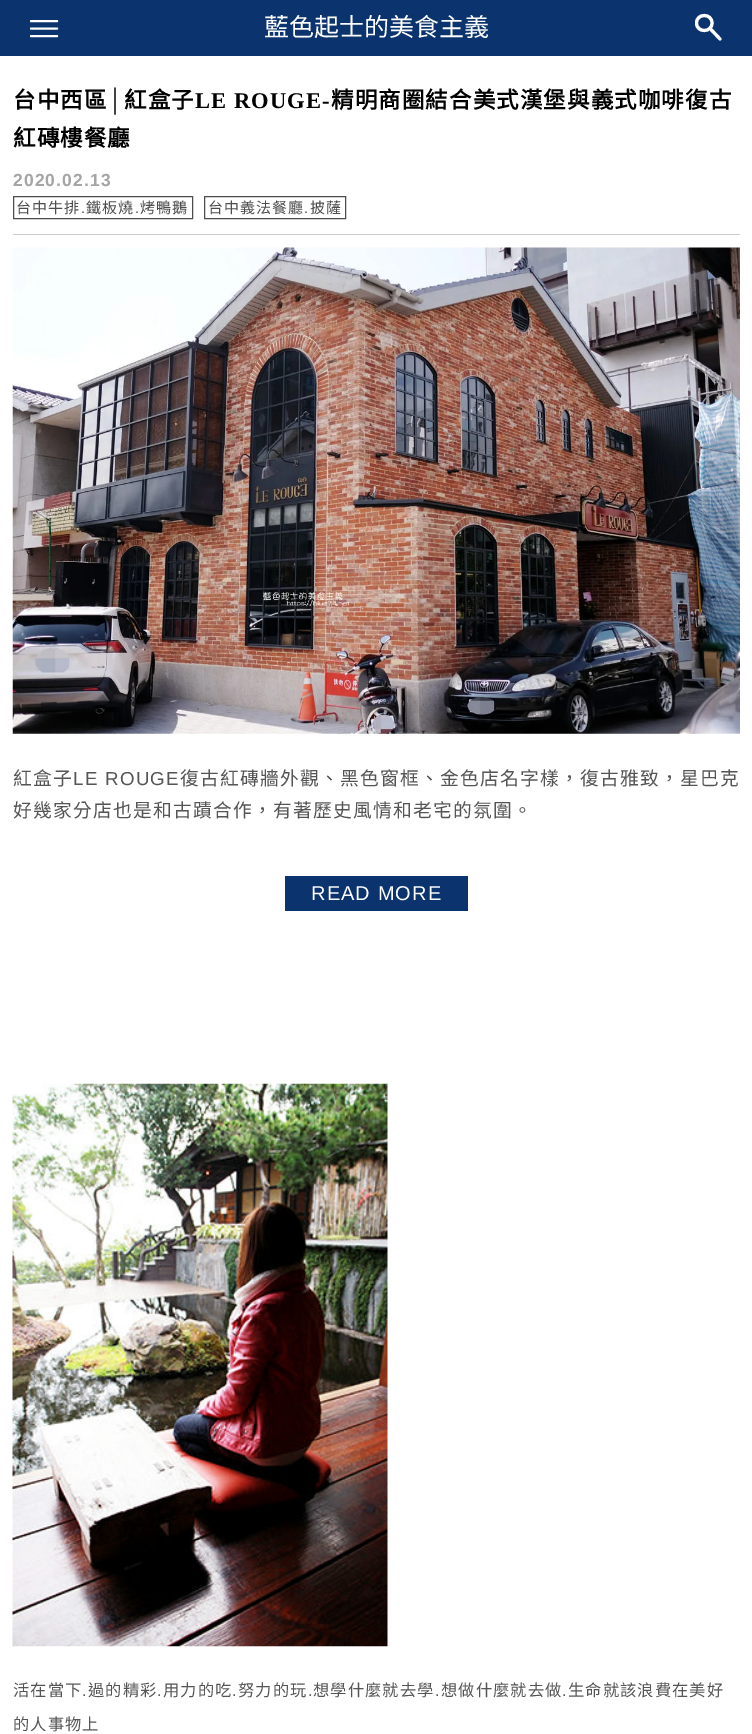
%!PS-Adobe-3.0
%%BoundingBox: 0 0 752 1734
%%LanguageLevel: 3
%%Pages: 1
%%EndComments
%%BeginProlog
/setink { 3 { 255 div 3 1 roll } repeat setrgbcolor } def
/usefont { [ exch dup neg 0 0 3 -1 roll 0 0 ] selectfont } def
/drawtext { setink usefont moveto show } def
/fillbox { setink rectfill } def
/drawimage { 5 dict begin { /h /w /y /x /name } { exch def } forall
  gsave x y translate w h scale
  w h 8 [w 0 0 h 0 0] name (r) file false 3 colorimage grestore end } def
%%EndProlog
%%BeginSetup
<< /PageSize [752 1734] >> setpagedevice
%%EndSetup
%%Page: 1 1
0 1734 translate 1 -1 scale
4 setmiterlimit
0 0 752 1734 255 255 255 fillbox
0 0 752 56 11 52 110 fillbox
gsave
30 20 30 24 rectclip
255 255 255 setink
2.1 setlinewidth
1 setlinecap
31 21 moveto 57 21 lineto 31 28.5 moveto 57 28.5 lineto 31 36 moveto 57 36 lineto stroke
grestore
255 255 255 setink
3.1 setlinewidth
1 setlinecap
710.5 29 moveto 720 39 lineto 712 23 moveto 712 33 696.5 33 696.5 23 curveto 696.5 13 712 13 712 23 curveto closepath stroke
(藍色起士的美食主義) 264 36 /NotoSansCJKTC-Regular 25 255 255 255 drawtext
/NotoSansCJKTC-Bold 22.5 usefont
0 0 0 setink
13 108 moveto 1.1 0 (台中西區) ashow
/LiberationSerif-Bold 22.5 usefont
107 108 moveto 1.1 0 (│) ashow
/NotoSansCJKTC-Bold 22.5 usefont
124 108 moveto 1.1 0 (紅盒子) ashow
/LiberationSerif-Bold 22.5 usefont
195 108 moveto 1.1 0 (LE ROUGE-) ashow
/NotoSansCJKTC-Bold 22.5 usefont
331 108 moveto 1.1 0 (精明商圈結合美式漢堡與義式咖啡復古) ashow
13 146 moveto 1.1 0 (紅磚樓餐廳) ashow
13 234 727 1 204 204 204 fillbox
/LiberationSans-Bold 17.5 usefont
165 165 165 setink
13 186 moveto 1.1 0 (2020.02.13) ashow
77 77 77 setink
1 setlinewidth
0 setlinecap
13.5 196.5 179 22 rectstroke
/NotoSansCJKTC-Regular 15 usefont
16 213 moveto 1.1 0 (台中牛排) ashow
/LiberationSans-Regular 15 usefont
81 213 moveto 1.1 0 (.) ashow
/NotoSansCJKTC-Regular 15 usefont
86 213 moveto 1.1 0 (鐵板燒) ashow
/LiberationSans-Regular 15 usefont
135 213 moveto 1.1 0 (.) ashow
/NotoSansCJKTC-Regular 15 usefont
140 213 moveto 1.1 0 (烤鴨鵝) ashow
204.5 196.5 141 22 rectstroke
208 213 moveto 1.1 0 (台中義法餐廳) ashow
/LiberationSans-Regular 15 usefont
304 213 moveto 1.1 0 (.) ashow
/NotoSansCJKTC-Regular 15 usefont
310 213 moveto 1.1 0 (披薩) ashow
(assets/img1.rgb) 12 247 728 487 drawimage
/NotoSansCJKTC-Regular 18.75 usefont
85 85 85 setink
13 785 moveto 1.25 0 (紅盒子) ashow
/LiberationSans-Regular 18.75 usefont
73 785 moveto 1.25 0 (LE ROUGE) ashow
/NotoSansCJKTC-Regular 18.75 usefont
180 785 moveto 1.25 0 (復古紅磚牆外觀、黑色窗框、金色店名字樣，復古雅致，星巴克) ashow
13 817 moveto 1.25 0 (好幾家分店也是和古蹟合作，有著歷史風情和老宅的氛圍。) ashow
285 876 183 35 11 52 110 fillbox
/LiberationSans-Regular 20 usefont
255 255 255 setink
311 900 moveto 1.1 0 (READ MORE) ashow
(assets/img2.rgb) 12 1083 376 564 drawimage
/NotoSansCJKTC-Regular 16.25 usefont
85 85 85 setink
13 1696 moveto 1.1 0 (活在當下) ashow
/LiberationSans-Regular 16.25 usefont
82 1696 moveto 1.1 0 (.) ashow
/NotoSansCJKTC-Regular 16.25 usefont
88 1696 moveto 1.1 0 (過的精彩) ashow
/LiberationSans-Regular 16.25 usefont
157 1696 moveto 1.1 0 (.) ashow
/NotoSansCJKTC-Regular 16.25 usefont
163 1696 moveto 1.1 0 (用力的吃) ashow
/LiberationSans-Regular 16.25 usefont
232 1696 moveto 1.1 0 (.) ashow
/NotoSansCJKTC-Regular 16.25 usefont
238 1696 moveto 1.1 0 (努力的玩) ashow
/LiberationSans-Regular 16.25 usefont
308 1696 moveto 1.1 0 (.) ashow
/NotoSansCJKTC-Regular 16.25 usefont
313 1696 moveto 1.1 0 (想學什麼就去學) ashow
/LiberationSans-Regular 16.25 usefont
435 1696 moveto 1.1 0 (.) ashow
/NotoSansCJKTC-Regular 16.25 usefont
441 1696 moveto 1.1 0 (想做什麼就去做) ashow
/LiberationSans-Regular 16.25 usefont
562 1696 moveto 1.1 0 (.) ashow
/NotoSansCJKTC-Regular 16.25 usefont
568 1696 moveto 1.1 0 (生命就該浪費在美好) ashow
13 1730 moveto 1.1 0 (的人事物上) ashow
showpage
%%EOF
